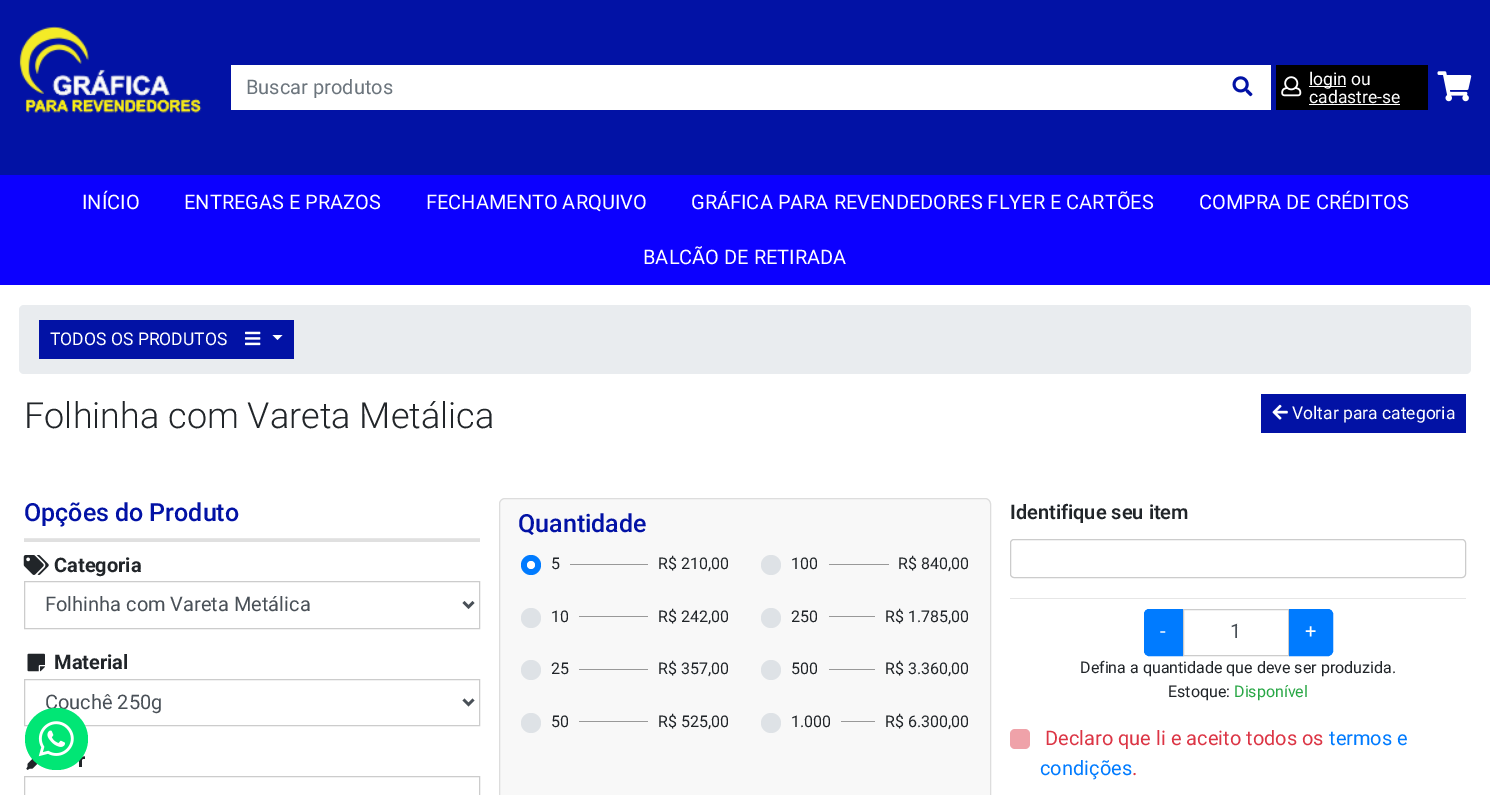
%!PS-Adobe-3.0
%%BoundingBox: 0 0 1490 795
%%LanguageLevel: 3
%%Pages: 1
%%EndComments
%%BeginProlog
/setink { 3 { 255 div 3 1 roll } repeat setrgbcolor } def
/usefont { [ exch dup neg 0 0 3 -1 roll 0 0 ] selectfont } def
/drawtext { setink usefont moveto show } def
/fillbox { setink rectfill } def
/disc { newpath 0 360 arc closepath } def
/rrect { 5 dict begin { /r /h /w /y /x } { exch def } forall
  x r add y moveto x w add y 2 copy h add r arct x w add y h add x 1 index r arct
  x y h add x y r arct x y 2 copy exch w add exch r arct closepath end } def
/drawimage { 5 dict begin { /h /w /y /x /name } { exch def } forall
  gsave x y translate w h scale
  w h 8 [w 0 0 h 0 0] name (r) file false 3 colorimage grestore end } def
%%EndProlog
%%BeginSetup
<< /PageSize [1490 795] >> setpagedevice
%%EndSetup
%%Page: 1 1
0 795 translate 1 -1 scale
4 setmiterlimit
0 0 1490 795 255 255 255 fillbox
0 0 1490 175 2 18 165 fillbox
(assets/img1.rgb) 19 26 183 87 drawimage
231 65 1040 45 255 255 255 fillbox
(assets/img2.rgb) 1232 76 21 21 drawimage
(Buscar produtos) 246 94 /Roboto-Regular 20 108 117 125 drawtext
1276 65 152 45 0 0 0 fillbox
(assets/img3.rgb) 1281 76 21 21 drawimage
1309 86 37 1 255 255 255 fillbox
(login ou) 1309 85 /Roboto-Regular 17.5 255 255 255 drawtext
(cadastre-se) 1309 103 /Roboto-Regular 17.5 255 255 255 drawtext
1309 104 91 1 255 255 255 fillbox
(assets/img4.rgb) 1437 71 35 31 drawimage
0 175 1490 110 12 0 255 fillbox
(INÍCIO) 82 209 /Roboto-Regular 20 255 255 255 drawtext
(ENTREGAS E PRAZOS) 184 209 /Roboto-Regular 20 255 255 255 drawtext
(FECHAMENTO ARQUIVO) 426 209 /Roboto-Regular 20 255 255 255 drawtext
(GRÁFICA PARA REVENDEDORES FLYER E CARTÕES) 691 209 /Roboto-Regular 20 255 255 255 drawtext
(COMPRA DE CRÉDITOS) 1199 209 /Roboto-Regular 20 255 255 255 drawtext
(BALCÃO DE RETIRADA) 643 264 /Roboto-Regular 20 255 255 255 drawtext
233 236 239 setink
19 305 1452 69 5 rrect fill
39 320 255 39 2 18 165 fillbox
(TODOS OS PRODUTOS) 50 345 /Roboto-Regular 17.5 255 255 255 drawtext
(assets/img5.rgb) 245 331 16 15 drawimage
272.5 335 moveto 282.5 335 lineto 277.5 340 lineto closepath fill
(Folhinha com Vareta Metálica) 24 428 /Roboto-Light 36 33 37 41 drawtext
1261 394 205 39 2 18 165 fillbox
(assets/img6.rgb) 1272 404 16 16 drawimage
(Voltar para categoria) 1292 419 /Roboto-Regular 17.5 255 255 255 drawtext
(Opções do Produto) 24 521 /Roboto-Medium 25 2 18 165 drawtext
24 538 456 1 230 230 230 fillbox
24 539 456 3 224 224 224 fillbox
(assets/img7.rgb) 23 555 26 20 drawimage
(Categoria) 54 572 /Roboto-Bold 20 33 37 41 drawtext
204 204 204 setink
24.5 581.5 455 47 rectstroke
73 80 87 setink
2.5 setlinewidth
463.5 602 moveto 468.5 607 lineto 473.5 602 lineto stroke
(Folhinha com Vareta Metálica) 45 611 /Roboto-Regular 20 73 80 87 drawtext
(assets/img8.rgb) 27 653 18 19 drawimage
(Material) 54 669 /Roboto-Bold 20 33 37 41 drawtext
204 204 204 setink
1 setlinewidth
24.5 679.5 455 46 rectstroke
73 80 87 setink
2.5 setlinewidth
463.5 699.5 moveto 468.5 704.5 lineto 473.5 699.5 lineto stroke
(Couchê 250g) 45 709 /Roboto-Regular 20 73 80 87 drawtext
(assets/img9.rgb) 26 758 12 12 drawimage
(r) 78 767 /Roboto-Bold 20 33 37 41 drawtext
204 204 204 setink
1 setlinewidth
24.5 776.5 455 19 rectstroke
248 248 248 setink
499.5 498.5 491 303 5.5 rrect gsave fill grestore
221 221 221 setink
stroke
(Quantidade) 518 532 /Roboto-Medium 25 2 18 165 drawtext
0 123 255 setink
531 565 10 disc fill
(5) 551 569 /Roboto-Regular 16 33 37 41 drawtext
255 255 255 setink
531 565 4 disc fill
570 564 78 1 153 153 153 fillbox
(R$ 210,00) 658 569 /Roboto-Regular 16 33 37 41 drawtext
222 226 230 setink
771 565 10 disc fill
(100) 791 569 /Roboto-Regular 16 33 37 41 drawtext
829 564 60 1 153 153 153 fillbox
(R$ 840,00) 898 569 /Roboto-Regular 16 33 37 41 drawtext
222 226 230 setink
531 618 10 disc fill
(10) 551 622 /Roboto-Regular 16 33 37 41 drawtext
579 616 69 1 153 153 153 fillbox
(R$ 242,00) 658 622 /Roboto-Regular 16 33 37 41 drawtext
222 226 230 setink
771 618 10 disc fill
(250) 791 622 /Roboto-Regular 16 33 37 41 drawtext
829 616 46 1 153 153 153 fillbox
(R$ 1.785,00) 885 622 /Roboto-Regular 16 33 37 41 drawtext
222 226 230 setink
531 670 10 disc fill
(25) 551 674 /Roboto-Regular 16 33 37 41 drawtext
579 669 69 1 153 153 153 fillbox
(R$ 357,00) 658 674 /Roboto-Regular 16 33 37 41 drawtext
222 226 230 setink
771 670 10 disc fill
(500) 791 674 /Roboto-Regular 16 33 37 41 drawtext
829 669 46 1 153 153 153 fillbox
(R$ 3.360,00) 885 674 /Roboto-Regular 16 33 37 41 drawtext
222 226 230 setink
531 723 10 disc fill
(50) 551 727 /Roboto-Regular 16 33 37 41 drawtext
579 721 69 1 153 153 153 fillbox
(R$ 525,00) 658 727 /Roboto-Regular 16 33 37 41 drawtext
222 226 230 setink
771 723 10 disc fill
(1.000) 791 727 /Roboto-Regular 16 33 37 41 drawtext
841 721 34 1 153 153 153 fillbox
(R$ 6.300,00) 885 727 /Roboto-Regular 16 33 37 41 drawtext
(Identifique seu item) 1010 519 /Roboto-SemiBold 20 33 37 41 drawtext
204 204 204 setink
1010.5 539.5 455 38 3.5 rrect stroke
1010 598 456 1 230 230 230 fillbox
0 123 255 setink
1149 609.5 moveto 1182.5 609.5 lineto 1182.5 655.5 lineto 1149 655.5 lineto 1146.5 655.5 1144.5 653.5 1144.5 651 curveto 1144.5 614 lineto 1144.5 611.5 1146.5 609.5 1149 609.5 curveto closepath gsave fill grestore
stroke
(-) 1160 638 /Roboto-Regular 20 255 255 255 drawtext
204 204 204 setink
1183.5 609.5 105 46 rectstroke
(1) 1230 638 /Roboto-Regular 20 73 80 87 drawtext
0 123 255 setink
1289.5 609.5 moveto 1328 609.5 lineto 1330.5 609.5 1332.5 611.5 1332.5 614 curveto 1332.5 651 lineto 1332.5 653.5 1330.5 655.5 1328 655.5 curveto 1289.5 655.5 lineto closepath gsave fill grestore
stroke
(+) 1305 638 /Roboto-Regular 20 255 255 255 drawtext
(Defina a quantidade que deve ser produzida.) 1080 673 /Roboto-Regular 16 33 37 41 drawtext
(Estoque:) 1168 697 /Roboto-Regular 16 33 37 41 drawtext
(Disponível) 1234 697 /Roboto-Regular 16 40 167 69 drawtext
239 162 169 setink
1010 729 20 20 5 rrect fill
(Declaro que li e aceito todos os) 1045 745 /Roboto-Regular 20 220 53 69 drawtext
(termos e) 1329 745 /Roboto-Regular 20 0 123 255 drawtext
(condições) 1040 775 /Roboto-Regular 20 0 123 255 drawtext
(.) 1132 775 /Roboto-Regular 20 220 53 69 drawtext
1 230 117 setink
25 708 63 62 31 rrect fill
(assets/img10.rgb) 38 721 36 36 drawimage
showpage
%%EOF
